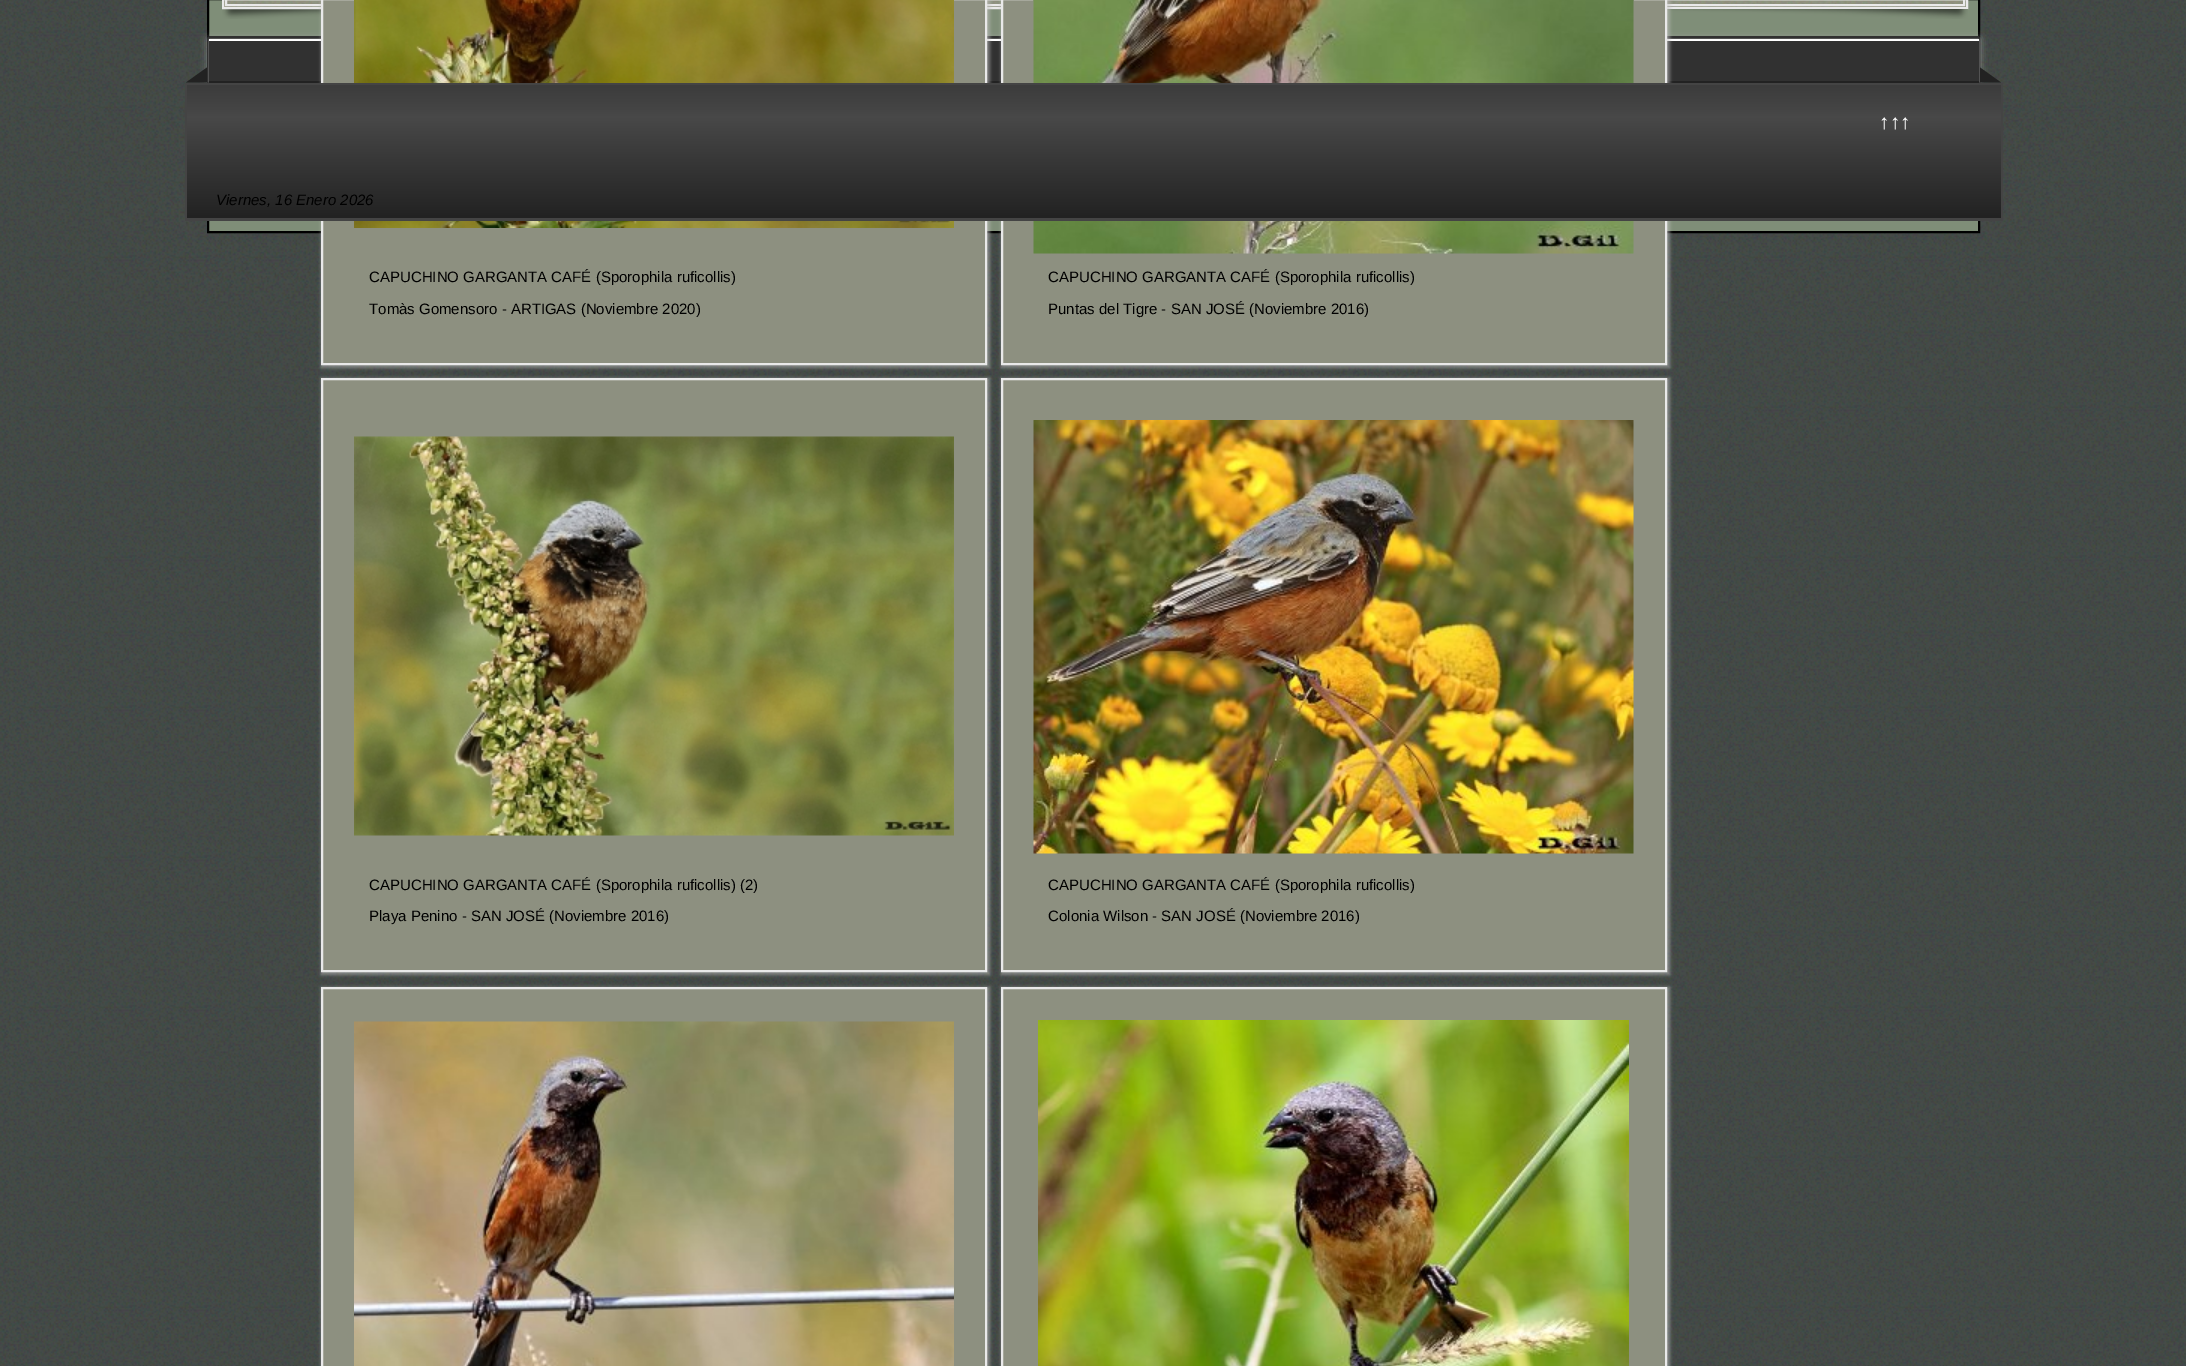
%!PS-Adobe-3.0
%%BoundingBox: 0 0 2186 1366
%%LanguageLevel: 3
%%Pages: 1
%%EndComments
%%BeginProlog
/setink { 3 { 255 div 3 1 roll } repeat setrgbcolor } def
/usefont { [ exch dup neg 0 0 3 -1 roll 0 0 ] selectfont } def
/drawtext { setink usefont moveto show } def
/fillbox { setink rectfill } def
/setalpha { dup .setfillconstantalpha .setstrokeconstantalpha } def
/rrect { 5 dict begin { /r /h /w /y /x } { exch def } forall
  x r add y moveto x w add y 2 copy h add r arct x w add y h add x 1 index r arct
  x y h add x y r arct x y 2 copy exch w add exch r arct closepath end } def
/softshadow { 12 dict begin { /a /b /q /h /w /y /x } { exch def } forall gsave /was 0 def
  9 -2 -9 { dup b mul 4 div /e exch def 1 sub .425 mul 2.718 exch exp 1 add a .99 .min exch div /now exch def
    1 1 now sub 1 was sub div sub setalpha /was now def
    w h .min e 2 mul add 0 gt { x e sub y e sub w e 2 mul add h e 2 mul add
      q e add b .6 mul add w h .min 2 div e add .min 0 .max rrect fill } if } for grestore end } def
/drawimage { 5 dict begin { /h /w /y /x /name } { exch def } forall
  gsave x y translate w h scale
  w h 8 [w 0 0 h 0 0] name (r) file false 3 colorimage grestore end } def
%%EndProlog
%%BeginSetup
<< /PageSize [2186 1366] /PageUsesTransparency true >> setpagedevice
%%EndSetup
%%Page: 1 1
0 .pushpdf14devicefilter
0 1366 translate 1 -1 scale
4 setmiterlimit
0 0 2186 1366 52 58 55 fillbox
(assets/img1.rgb) 0 0 2186 1366 drawimage
209 221 1769 10 127 142 120 fillbox
0 0 0 setink
2 setlinewidth
208 39 1771 193 rectstroke
127 142 120 setink
208 -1 moveto 1979 -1 lineto 1979 37 lineto 208 37 lineto closepath gsave fill grestore
0 0 0 setink
stroke
170 170 170 setink
209 39 1770 44 0 4 1 softshadow
209 41 1770 40 49 49 49 fillbox
209 39 1770 2 255 255 255 fillbox
209 81 1770 2 34 34 34 fillbox
(assets/img2.rgb) 222 9 99 10 drawimage
224 0 1742 7 135 138 118 fillbox
(assets/img4.rgb) 224 0 1742 7 drawimage
233 233 233 setink
223 -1 1744 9 rectstroke
226 -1 1738 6 rectstroke
190 190 190 setink
321 -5 669 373 0 1.5 0.5 softshadow
141 144 128 setink
322 -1 moveto 986 -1 lineto 986 364 lineto 322 364 lineto closepath gsave fill grestore
233 233 233 setink
stroke
(assets/img5.rgb) 354 0 600 228 drawimage
(assets/img3.rgb) 1667 9 301 10 drawimage
190 190 190 setink
1001 -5 669 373 0 1.5 0.5 softshadow
141 144 128 setink
1002 -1 moveto 1666 -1 lineto 1666 364 lineto 1002 364 lineto closepath gsave fill grestore
233 233 233 setink
stroke
(assets/img6.rgb) 1033 0 601 254 drawimage
gsave 187 85 moveto 2001 85 lineto 2001 218 lineto 187 218 lineto closepath clip newpath
<< /ShadingType 2 /ColorSpace /DeviceRGB /Coords [1094 84 1094 218] /Extend [true true] /Function << /FunctionType 3 /Domain [0 1] /Functions [<< /FunctionType 2 /Domain [0 1] /C0 [0.235 0.235 0.235] /C1 [0.282 0.282 0.282] /N 1 >> << /FunctionType 2 /Domain [0 1] /C0 [0.282 0.282 0.282] /C1 [0.133 0.133 0.133] /N 1 >>] /Bounds [0.25] /Encode [0 1 0 1] >> >> shfill grestore
185 83 1818 2 68 68 68 fillbox
2001 83 2 138 68 68 68 fillbox
185 218 1818 3 68 68 68 fillbox
185 83 2 138 68 68 68 fillbox
34 34 34 setink
207 82.5 moveto 186 82.5 lineto 207 67.5 lineto closepath fill
2001 82.5 moveto 1980 82.5 lineto 1980 67.5 lineto closepath fill
(↑↑↑) 1879 129 /LiberationSans-Regular 21 255 255 255 drawtext
(Viernes, 16 Enero 2026) 216 205 /LiberationSans-Italic 15 0 0 0 drawtext
(CAPUCHINO GARGANTA CAFÉ \(Sporophila ruficollis\)) 369 282 /LiberationSans-Regular 15 0 0 0 drawtext
(Tomàs Gomensoro - ARTIGAS \(Noviembre 2020\)) 369 314 /LiberationSans-Regular 15 0 0 0 drawtext
(CAPUCHINO GARGANTA CAFÉ \(Sporophila ruficollis\)) 1048 282 /LiberationSans-Regular 15 0 0 0 drawtext
(Puntas del Tigre - SAN JOSÉ \(Noviembre 2016\)) 1048 314 /LiberationSans-Regular 15 0 0 0 drawtext
190 190 190 setink
321 378 669 597 0 1.5 0.5 softshadow
141 144 128 setink
322 379 moveto 986 379 lineto 986 971 lineto 322 971 lineto closepath gsave fill grestore
233 233 233 setink
stroke
(assets/img7.rgb) 354 436 600 400 drawimage
(CAPUCHINO GARGANTA CAFÉ \(Sporophila ruficollis\) \(2\)) 369 890 /LiberationSans-Regular 15 0 0 0 drawtext
(Playa Penino - SAN JOSÉ \(Noviembre 2016\)) 369 921 /LiberationSans-Regular 15 0 0 0 drawtext
190 190 190 setink
1001 378 669 597 0 1.5 0.5 softshadow
141 144 128 setink
1002 379 moveto 1666 379 lineto 1666 971 lineto 1002 971 lineto closepath gsave fill grestore
233 233 233 setink
stroke
(assets/img8.rgb) 1033 420 601 434 drawimage
(CAPUCHINO GARGANTA CAFÉ \(Sporophila ruficollis\)) 1048 890 /LiberationSans-Regular 15 0 0 0 drawtext
(Colonia Wilson - SAN JOSÉ \(Noviembre 2016\)) 1048 921 /LiberationSans-Regular 15 0 0 0 drawtext
190 190 190 setink
321 987 669 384 0 1.5 0.5 softshadow
141 144 128 setink
322 988 moveto 986 988 lineto 986 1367 lineto 322 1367 lineto closepath gsave fill grestore
233 233 233 setink
stroke
(assets/img9.rgb) 354 1021 600 345 drawimage
190 190 190 setink
1001 987 669 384 0 1.5 0.5 softshadow
141 144 128 setink
1002 988 moveto 1666 988 lineto 1666 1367 lineto 1002 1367 lineto closepath gsave fill grestore
233 233 233 setink
stroke
(assets/img10.rgb) 1038 1020 591 346 drawimage
.poppdf14devicefilter showpage
%%EOF
